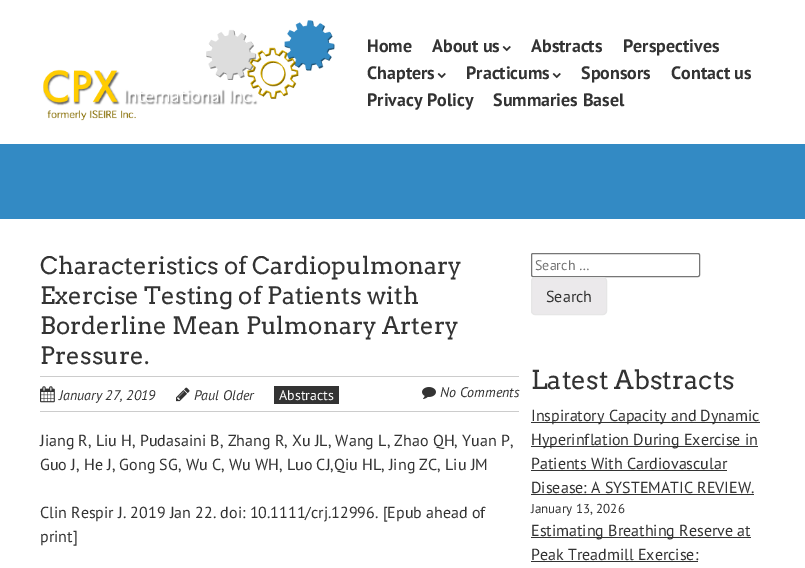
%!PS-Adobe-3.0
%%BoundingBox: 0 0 805 568
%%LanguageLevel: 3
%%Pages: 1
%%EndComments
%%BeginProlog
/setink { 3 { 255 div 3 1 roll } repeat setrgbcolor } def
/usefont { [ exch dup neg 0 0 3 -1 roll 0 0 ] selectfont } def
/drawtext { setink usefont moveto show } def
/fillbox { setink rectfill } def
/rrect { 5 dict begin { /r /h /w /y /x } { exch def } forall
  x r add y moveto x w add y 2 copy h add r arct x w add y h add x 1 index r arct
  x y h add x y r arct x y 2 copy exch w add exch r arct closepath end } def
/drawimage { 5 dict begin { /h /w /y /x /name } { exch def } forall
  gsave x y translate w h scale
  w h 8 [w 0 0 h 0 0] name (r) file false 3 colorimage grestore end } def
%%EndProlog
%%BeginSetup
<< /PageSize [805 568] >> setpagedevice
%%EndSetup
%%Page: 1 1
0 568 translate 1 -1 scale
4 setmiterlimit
0 0 805 568 255 255 255 fillbox
(assets/img1.rgb) 43 20 292 101 drawimage
(Home) 367 52 /PTSans-Bold 18 51 51 51 drawtext
(About us) 432 52 /PTSans-Bold 18 51 51 51 drawtext
(assets/img2.rgb) 502 46 9 6 drawimage
(Abstracts) 531 52 /PTSans-Bold 18 51 51 51 drawtext
(Perspectives) 623 52 /PTSans-Bold 18 51 51 51 drawtext
(Chapters) 367 79 /PTSans-Bold 18 51 51 51 drawtext
(assets/img2.rgb) 437 73 9 6 drawimage
(Practicums) 466 79 /PTSans-Bold 18 51 51 51 drawtext
(assets/img2.rgb) 552 73 9 6 drawimage
(Sponsors) 581 79 /PTSans-Bold 18 51 51 51 drawtext
(Contact us) 671 79 /PTSans-Bold 18 51 51 51 drawtext
(Privacy Policy) 367 106 /PTSans-Bold 18 51 51 51 drawtext
(Summaries Basel) 493 106 /PTSans-Bold 18 51 51 51 drawtext
0 144 805 75 51 138 196 fillbox
(Characteristics of Cardiopulmonary) 40 274 /Arvo-Regular 24 51 51 51 drawtext
(Exercise Testing of Patients with) 40 304 /Arvo-Regular 24 51 51 51 drawtext
(Borderline Mean Pulmonary Artery) 40 334 /Arvo-Regular 24 51 51 51 drawtext
(Pressure.) 40 364 /Arvo-Regular 24 51 51 51 drawtext
40 376 479 1 204 204 204 fillbox
40 411 479 1 204 204 204 fillbox
(assets/img3.rgb) 40 386 15 17 drawimage
(January 27, 2019) 59 400 /PTSans-Italic 14 51 51 51 drawtext
(assets/img4.rgb) 176 387 14 15 drawimage
(Paul Older) 194 400 /PTSans-Italic 14 51 51 51 drawtext
274 386 65 18 51 51 51 fillbox
(Abstracts) 279 400 /PTSans-Regular 14 255 255 255 drawtext
(assets/img5.rgb) 422 387 14 12 drawimage
(No Comments) 440 397 /PTSans-Italic 14 51 51 51 drawtext
(Jiang R, Liu H, Pudasaini B, Zhang R, Xu JL, Wang L, Zhao QH, Yuan P,) 40 446 /PTSans-Regular 16 51 51 51 drawtext
(Guo J, He J, Gong SG, Wu C, Wu WH, Luo CJ,Qiu HL, Jing ZC, Liu JM) 40 470 /PTSans-Regular 16 51 51 51 drawtext
(Clin Respir J. 2019 Jan 22. doi: 10.1111/crj.12996. [Epub ahead of) 40 518 /PTSans-Regular 16 51 51 51 drawtext
(print]) 40 542 /PTSans-Regular 16 51 51 51 drawtext
118 118 118 setink
531.5 253.5 168 23 1.5 rrect stroke
(Search …) 535 270 /PTSans-Regular 14 117 117 117 drawtext
235 233 235 setink
531.5 277.5 75 37 3.5 rrect gsave fill grestore
230 230 230 setink
stroke
(Search) 546 302 /PTSans-Regular 16 51 51 51 drawtext
(Latest Abstracts) 531 389 /Arvo-Regular 26 51 51 51 drawtext
531 422 229 1 51 51 51 fillbox
(Inspiratory Capacity and Dynamic) 531 421 /PTSans-Regular 16 51 51 51 drawtext
531 446 227 1 51 51 51 fillbox
(Hyperinflation During Exercise in) 531 445 /PTSans-Regular 16 51 51 51 drawtext
(Patients With Cardiovascular) 531 469 /PTSans-Regular 16 51 51 51 drawtext
531 470 196 1 51 51 51 fillbox
(Disease: A SYSTEMATIC REVIEW.) 531 493 /PTSans-Regular 16 51 51 51 drawtext
531 494 223 1 51 51 51 fillbox
(January 13, 2026) 531 513 /PTSans-Regular 13 51 51 51 drawtext
531 537 220 1 51 51 51 fillbox
(Estimating Breathing Reserve at) 531 536 /PTSans-Regular 16 51 51 51 drawtext
(Peak Treadmill Exercise:) 531 560 /PTSans-Regular 16 51 51 51 drawtext
531 561 167 1 51 51 51 fillbox
showpage
%%EOF
